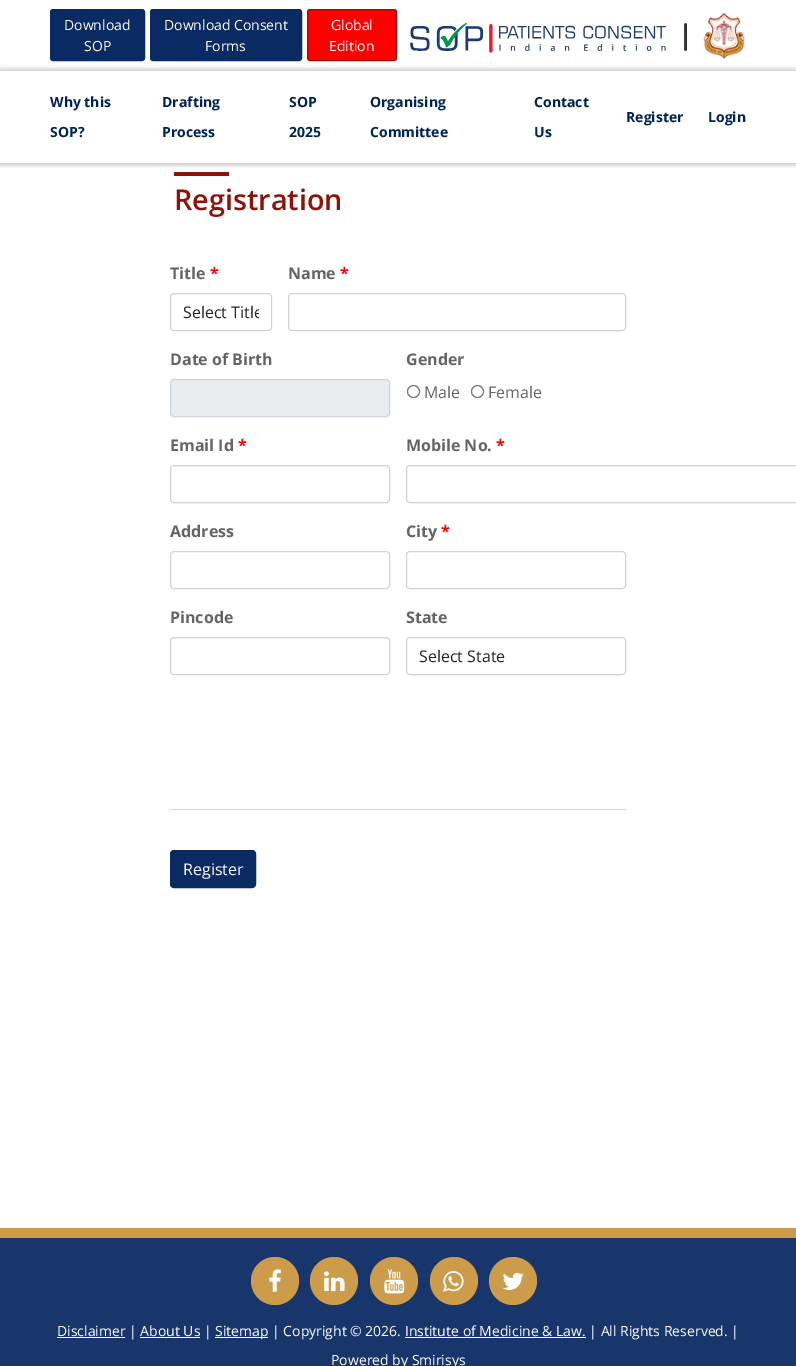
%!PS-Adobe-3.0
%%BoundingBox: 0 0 796 1366
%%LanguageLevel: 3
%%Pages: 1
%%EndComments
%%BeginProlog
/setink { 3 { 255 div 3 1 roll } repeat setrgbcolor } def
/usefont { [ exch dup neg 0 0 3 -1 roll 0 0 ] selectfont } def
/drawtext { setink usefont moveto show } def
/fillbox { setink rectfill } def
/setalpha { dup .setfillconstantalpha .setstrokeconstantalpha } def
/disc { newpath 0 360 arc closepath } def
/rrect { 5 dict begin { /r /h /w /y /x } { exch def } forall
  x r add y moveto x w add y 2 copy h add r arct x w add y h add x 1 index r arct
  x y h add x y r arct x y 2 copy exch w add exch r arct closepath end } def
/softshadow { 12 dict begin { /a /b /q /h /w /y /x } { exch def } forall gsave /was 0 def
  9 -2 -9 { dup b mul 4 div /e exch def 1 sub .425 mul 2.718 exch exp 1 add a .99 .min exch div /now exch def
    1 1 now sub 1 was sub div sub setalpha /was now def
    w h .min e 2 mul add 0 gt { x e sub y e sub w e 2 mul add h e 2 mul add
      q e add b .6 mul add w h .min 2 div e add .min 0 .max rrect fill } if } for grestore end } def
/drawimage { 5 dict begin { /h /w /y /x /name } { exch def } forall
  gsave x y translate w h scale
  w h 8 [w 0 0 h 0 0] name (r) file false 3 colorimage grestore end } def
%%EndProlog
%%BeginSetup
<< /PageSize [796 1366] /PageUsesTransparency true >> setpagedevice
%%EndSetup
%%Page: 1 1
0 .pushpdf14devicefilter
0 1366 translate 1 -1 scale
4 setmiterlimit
0 0 796 1366 255 255 255 fillbox
174 172 55 4 141 19 9 fillbox
gsave
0 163 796 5 rectclip
0 0 0 setink
0 2 796 163 0 2.5 0.2 softshadow
grestore
gsave
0 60 moveto 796 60 lineto 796 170 lineto 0 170 lineto closepath 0 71 moveto 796 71 lineto 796 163 lineto 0 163 lineto closepath eoclip newpath
0 0 0 setink
0 69 796 92 0 2.5 0.2 softshadow
grestore
9 42 99 setink
50.5 9.5 94 51 2.5 rrect gsave fill grestore
stroke
(Download) 64 30 /OpenSans-Regular 14 255 255 255 drawtext
(SOP) 84 51 /OpenSans-Regular 14 255 255 255 drawtext
9 42 99 setink
150.5 9.5 151 51 2.5 rrect gsave fill grestore
stroke
(Download Consent) 164 30 /OpenSans-Regular 14 255 255 255 drawtext
(Forms) 205 51 /OpenSans-Regular 14 255 255 255 drawtext
255 0 0 setink
307.5 9.5 89 51 2.5 rrect gsave fill grestore
141 19 9 setink
stroke
(Global) 331 30 /OpenSans-Regular 14 255 255 255 drawtext
(Edition) 329 51 /OpenSans-Regular 14 255 255 255 drawtext
(assets/img1.rgb) 410 22 277 31 drawimage
(assets/img2.rgb) 703 13 42 46 drawimage
(Why this) 50 107 /OpenSans-Bold 14 0 35 86 drawtext
(SOP?) 50 137 /OpenSans-Bold 14 0 35 86 drawtext
(Drafting) 162 107 /OpenSans-Bold 14 0 35 86 drawtext
(Process) 162 137 /OpenSans-Bold 14 0 35 86 drawtext
(SOP) 289 107 /OpenSans-Bold 14 0 35 86 drawtext
(2025) 289 137 /OpenSans-Bold 14 0 35 86 drawtext
(Organising) 370 107 /OpenSans-Bold 14 0 35 86 drawtext
(Committee) 370 137 /OpenSans-Bold 14 0 35 86 drawtext
(Contact) 534 107 /OpenSans-Bold 14 0 35 86 drawtext
(Us) 534 137 /OpenSans-Bold 14 0 35 86 drawtext
(Register) 626 122 /OpenSans-Bold 14 0 35 86 drawtext
(Login) 708 122 /OpenSans-Bold 14 0 35 86 drawtext
(Registration) 174 210 /OpenSans-SemiBold 28.75 141 19 9 drawtext
(Title) 170 279 /OpenSans-Bold 16 100 100 100 drawtext
(*) 210 279 /OpenSans-Bold 16 255 0 0 drawtext
206 212 218 setink
170.5 293.5 101 37 3.5 rrect stroke
gsave
183 300 76 24 rectclip
(Select Title) 183 318 /OpenSans-Regular 16 33 37 41 drawtext
grestore
(Name) 288 279 /OpenSans-Bold 16 100 100 100 drawtext
(*) 340 279 /OpenSans-Bold 16 255 0 0 drawtext
206 212 218 setink
288.5 293.5 337 37 3.5 rrect stroke
(Date of Birth) 170 365 /OpenSans-Bold 16 100 100 100 drawtext
233 236 239 setink
170.5 379.5 219 37 3.5 rrect gsave fill grestore
206 212 218 setink
stroke
(Gender) 406 365 /OpenSans-Bold 16 100 100 100 drawtext
118 118 118 setink
413.5 391.5 6 disc stroke
(Male) 424 398 /OpenSans-Regular 16 100 100 100 drawtext
118 118 118 setink
477.5 391.5 6 disc stroke
(Female) 488 398 /OpenSans-Regular 16 100 100 100 drawtext
(Email Id) 170 451 /OpenSans-Bold 16 100 100 100 drawtext
(*) 238 451 /OpenSans-Bold 16 255 0 0 drawtext
206 212 218 setink
170.5 465.5 219 37 3.5 rrect stroke
(Mobile No.) 406 451 /OpenSans-Bold 16 100 100 100 drawtext
(*) 496 451 /OpenSans-Bold 16 255 0 0 drawtext
206 212 218 setink
406.5 465.5 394 37 3.5 rrect stroke
(Address) 170 537 /OpenSans-Bold 16 100 100 100 drawtext
206 212 218 setink
170.5 551.5 219 37 3.5 rrect stroke
(City) 406 537 /OpenSans-Bold 16 100 100 100 drawtext
(*) 441 537 /OpenSans-Bold 16 255 0 0 drawtext
206 212 218 setink
406.5 551.5 219 37 3.5 rrect stroke
(Pincode) 170 623 /OpenSans-Bold 16 100 100 100 drawtext
206 212 218 setink
170.5 637.5 219 37 3.5 rrect stroke
(State) 406 623 /OpenSans-Bold 16 100 100 100 drawtext
206 212 218 setink
406.5 637.5 219 37 3.5 rrect stroke
(Select State) 419 662 /OpenSans-Regular 16 33 37 41 drawtext
170 809 456 1 216 216 216 fillbox
9 42 99 setink
170.5 850.5 85 37 3.5 rrect gsave fill grestore
stroke
(Register) 183 875 /OpenSans-Regular 16 255 255 255 drawtext
0 1238 796 128 24 54 108 fillbox
0 1228 796 10 205 156 75 fillbox
275 1281 24 disc fill
(assets/img3.rgb) 269 1269 12 23 drawimage
334 1281 24 disc fill
(assets/img4.rgb) 324 1271 21 21 drawimage
394 1281 24 disc fill
(assets/img5.rgb) 384 1269 21 25 drawimage
454 1281 24 disc fill
(assets/img6.rgb) 443 1271 21 21 drawimage
513 1281 24 disc fill
(assets/img7.rgb) 502 1272 22 18 drawimage
57 1337 68 1 255 255 255 fillbox
(Disclaimer | About Us |) 57 1336 /OpenSans-Regular 14 255 255 255 drawtext
215 1337 53 1 255 255 255 fillbox
(Sitemap | Copyright © 2026. Institute of Medicine & Law. | All Rights Reserved. |) 215 1336 /OpenSans-Regular 14 255 255 255 drawtext
140 1337 60 1 255 255 255 fillbox
405 1337 181 1 255 255 255 fillbox
(Powered by Smirisys) 331 1365 /OpenSans-Regular 14 255 255 255 drawtext
.poppdf14devicefilter showpage
%%EOF
